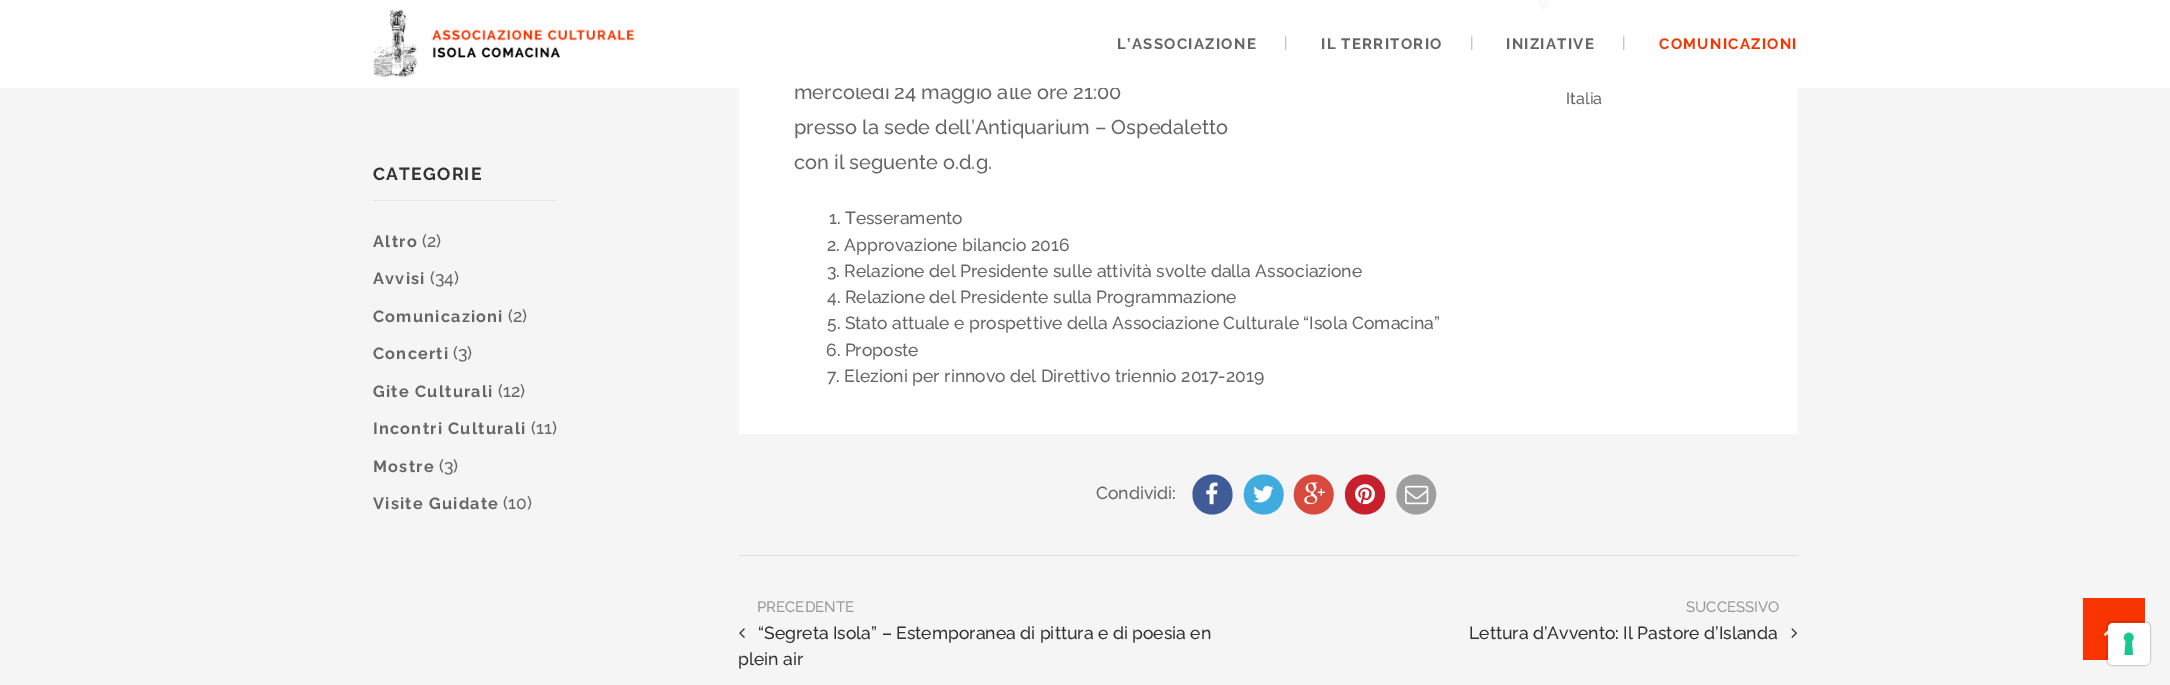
%!PS-Adobe-3.0
%%BoundingBox: 0 0 2170 685
%%LanguageLevel: 3
%%Pages: 1
%%EndComments
%%BeginProlog
/setink { 3 { 255 div 3 1 roll } repeat setrgbcolor } def
/usefont { [ exch dup neg 0 0 3 -1 roll 0 0 ] selectfont } def
/drawtext { setink usefont moveto show } def
/fillbox { setink rectfill } def
/setalpha { dup .setfillconstantalpha .setstrokeconstantalpha } def
/rrect { 5 dict begin { /r /h /w /y /x } { exch def } forall
  x r add y moveto x w add y 2 copy h add r arct x w add y h add x 1 index r arct
  x y h add x y r arct x y 2 copy exch w add exch r arct closepath end } def
/drawimage { 5 dict begin { /h /w /y /x /name } { exch def } forall
  gsave x y translate w h scale
  w h 8 [w 0 0 h 0 0] name (r) file false 3 colorimage grestore end } def
%%EndProlog
%%BeginSetup
<< /PageSize [2170 685] /PageUsesTransparency true >> setpagedevice
%%EndSetup
%%Page: 1 1
0 .pushpdf14devicefilter
0 685 translate 1 -1 scale
4 setmiterlimit
0 0 2170 685 245 245 245 fillbox
739 0 1059 434 255 255 255 fillbox
(mercoledì 24 maggio alle ore 21:00) 794 99 /Raleway-Medium 20 102 102 102 drawtext
(assets/img2.rgb) 1538 0 10 10 drawimage
0.95 setalpha
0 0 2170 88 255 255 255 fillbox
1 setalpha
(assets/img1.rgb) 373 9 262 69 drawimage
/Raleway-Bold 15 usefont
102 102 102 setink
1117 49 moveto 1.25 0 (L’ASSOCIAZIONE) ashow
(|) 1284 48 /Raleway-Medium 15 178 178 178 drawtext
/Raleway-Bold 15 usefont
102 102 102 setink
1321 49 moveto 1.25 0 (IL TERRITORIO) ashow
(|) 1470 48 /Raleway-Medium 15 178 178 178 drawtext
/Raleway-Bold 15 usefont
102 102 102 setink
1506 49 moveto 1.25 0 (INIZIATIVE) ashow
(|) 1622 48 /Raleway-Medium 15 178 178 178 drawtext
/Raleway-Bold 15 usefont
248 53 1 setink
1659 49 moveto 1.25 0 (COMUNICAZIONI) ashow
373 200 183 1 230 230 230 fillbox
/Raleway-Bold 17.5 usefont
51 51 51 setink
373 180 moveto 1.25 0 (CATEGORIE) ashow
/Raleway-Bold 16.25 usefont
102 102 102 setink
373 247 moveto 1.25 0 (Altro) ashow
(\(2\)) 422 247 /Raleway-Medium 17.5 102 102 102 drawtext
/Raleway-Bold 16.25 usefont
373 284 moveto 1.25 0 (Avvisi) ashow
(\(34\)) 430 284 /Raleway-Medium 17.5 102 102 102 drawtext
/Raleway-Bold 16.25 usefont
373 322 moveto 1.25 0 (Comunicazioni) ashow
(\(2\)) 508 322 /Raleway-Medium 17.5 102 102 102 drawtext
/Raleway-Bold 16.25 usefont
373 359 moveto 1.25 0 (Concerti) ashow
(\(3\)) 453 359 /Raleway-Medium 17.5 102 102 102 drawtext
/Raleway-Bold 16.25 usefont
373 397 moveto 1.25 0 (Gite Culturali) ashow
(\(12\)) 498 397 /Raleway-Medium 17.5 102 102 102 drawtext
/Raleway-Bold 16.25 usefont
373 434 moveto 1.25 0 (Incontri Culturali) ashow
(\(11\)) 531 434 /Raleway-Medium 17.5 102 102 102 drawtext
/Raleway-Bold 16.25 usefont
373 472 moveto 1.25 0 (Mostre) ashow
(\(3\)) 439 472 /Raleway-Medium 17.5 102 102 102 drawtext
/Raleway-Bold 16.25 usefont
373 509 moveto 1.25 0 (Visite Guidate) ashow
(\(10\)) 503 509 /Raleway-Medium 17.5 102 102 102 drawtext
(presso la sede dell’Antiquarium – Ospedaletto) 794 134 /Raleway-Medium 20 102 102 102 drawtext
(con il seguente o.d.g.) 794 169 /Raleway-Medium 20 102 102 102 drawtext
(1. Tesseramento) 829 224 /Raleway-Medium 17.5 102 102 102 drawtext
(2. Approvazione bilancio 2016) 827 251 /Raleway-Medium 17.5 102 102 102 drawtext
(3. Relazione del Presidente sulle attività svolte dalla Associazione) 827 277 /Raleway-Medium 17.5 102 102 102 drawtext
(4. Relazione del Presidente sulla Programmazione) 827 303 /Raleway-Medium 17.5 102 102 102 drawtext
(5. Stato attuale e prospettive della Associazione Culturale “Isola Comacina”) 827 329 /Raleway-Medium 17.5 102 102 102 drawtext
(6. Proposte) 826 356 /Raleway-Medium 17.5 102 102 102 drawtext
(7. Elezioni per rinnovo del Direttivo triennio 2017-2019) 827 382 /Raleway-Medium 17.5 102 102 102 drawtext
(Italia) 1566 104 /Raleway-Medium 16.25 102 102 102 drawtext
(Condividi:) 1096 499 /Raleway-Medium 17.5 102 102 102 drawtext
63 92 152 setink
1230 484.5 moveto 1232 488 1232.5 492 1232.5 496 curveto 1231 515.5 1205 521.5 1195 504.5 curveto 1193 501 1192.5 497 1192.5 493 curveto 1194 473.5 1220 467.5 1230 484.5 curveto closepath fill
(assets/img3.rgb) 1206 482 12 23 drawimage
63 171 222 setink
1281 484.5 moveto 1283 488 1284 492 1283.5 496 curveto 1282.5 515.5 1256.5 521.5 1246.5 504.5 curveto 1244.5 501 1243.5 497 1244 493 curveto 1245 473.5 1271 467.5 1281 484.5 curveto closepath fill
(assets/img4.rgb) 1253 485 21 18 drawimage
216 74 62 setink
1331 484.5 moveto 1333 488 1334 492 1333.5 496 curveto 1332.5 515.5 1306.5 521.5 1296.5 504.5 curveto 1294.5 501 1293.5 497 1294 493 curveto 1295 473.5 1321 467.5 1331 484.5 curveto closepath fill
(assets/img5.rgb) 1304 482 21 23 drawimage
199 31 46 setink
1382.5 484.5 moveto 1384.5 488 1385 492 1385 496 curveto 1383.5 515.5 1357.5 521.5 1347.5 504.5 curveto 1345.5 501 1345 497 1345 493 curveto 1346.5 473.5 1372.5 467.5 1382.5 484.5 curveto closepath fill
(assets/img6.rgb) 1355 484 20 21 drawimage
158 158 158 setink
1433.5 484.5 moveto 1435.5 488 1436.5 492 1436 496 curveto 1435 515.5 1409 521.5 1399 504.5 curveto 1397 501 1396 497 1396.5 493 curveto 1397.5 473.5 1423.5 467.5 1433.5 484.5 curveto closepath fill
(assets/img7.rgb) 1405 485 24 20 drawimage
739 555 1059 1 221 221 221 fillbox
(PRECEDENTE) 757 612 /Raleway-Medium 15 153 153 153 drawtext
(assets/img8.rgb) 739 628 6 10 drawimage
(“Segreta Isola” – Estemporanea di pittura e di poesia en) 758 639 /Raleway-Medium 17.5 51 51 51 drawtext
(plein air) 738 665 /Raleway-Medium 17.5 51 51 51 drawtext
(SUCCESSIVO) 1686 612 /Raleway-Medium 15 153 153 153 drawtext
(Lettura d’Avvento: Il Pastore d’Islanda) 1469 639 /Raleway-Medium 17.5 51 51 51 drawtext
(assets/img9.rgb) 1791 628 6 10 drawimage
2083 598 62 62 248 53 1 fillbox
(assets/img10.rgb) 2104 630 4 6 drawimage
0.15 setalpha
0 0 0 setink
2106.5 621.5 44 44 5.5 rrect stroke
1 setalpha
255 255 255 setink
2108 623 42 42 5 rrect fill
(assets/img11.rgb) 2123 632 11 23 drawimage
.poppdf14devicefilter showpage
%%EOF
